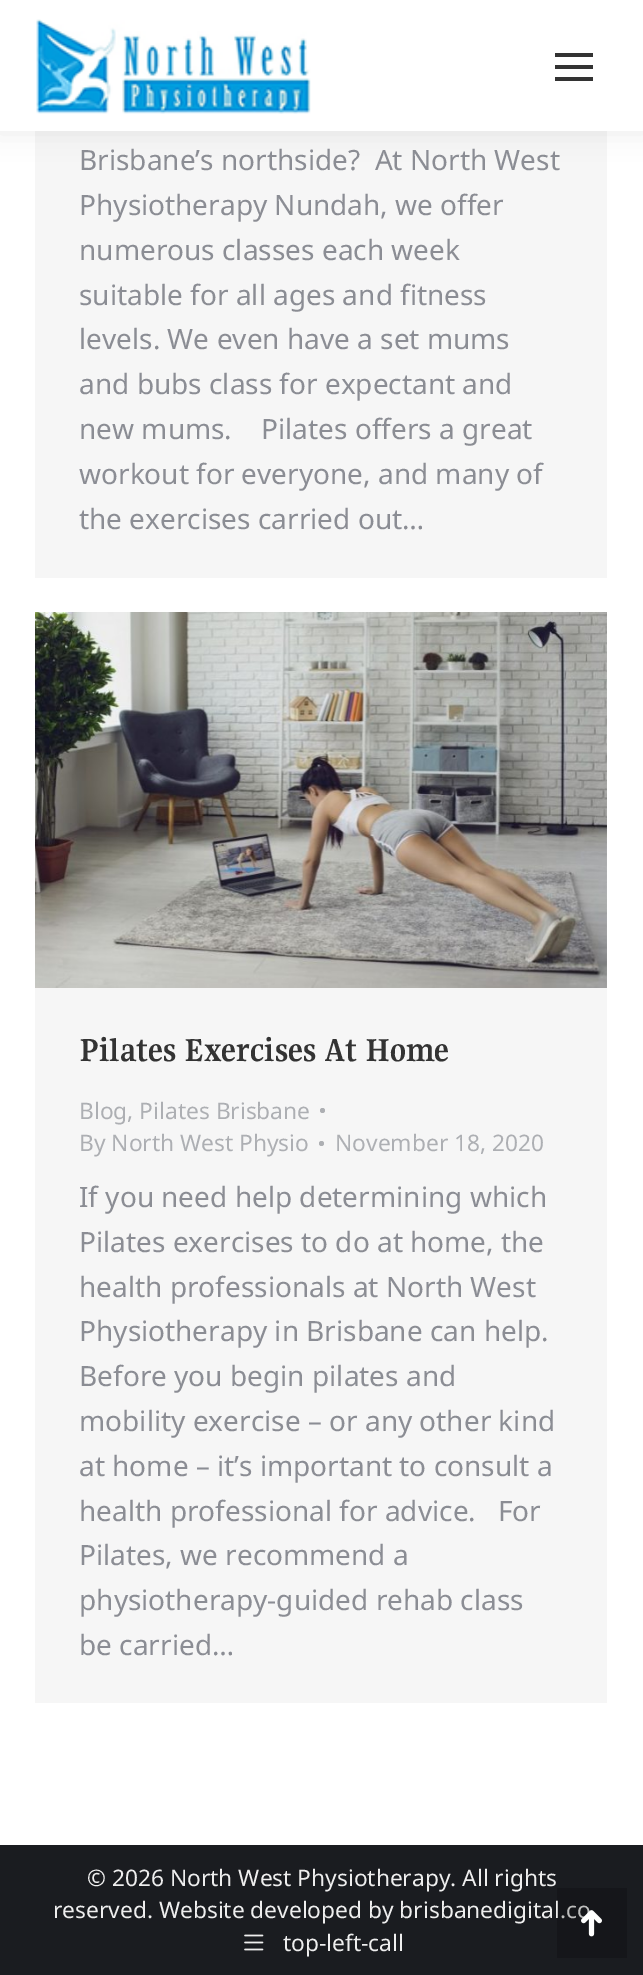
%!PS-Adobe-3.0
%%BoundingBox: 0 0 643 1975
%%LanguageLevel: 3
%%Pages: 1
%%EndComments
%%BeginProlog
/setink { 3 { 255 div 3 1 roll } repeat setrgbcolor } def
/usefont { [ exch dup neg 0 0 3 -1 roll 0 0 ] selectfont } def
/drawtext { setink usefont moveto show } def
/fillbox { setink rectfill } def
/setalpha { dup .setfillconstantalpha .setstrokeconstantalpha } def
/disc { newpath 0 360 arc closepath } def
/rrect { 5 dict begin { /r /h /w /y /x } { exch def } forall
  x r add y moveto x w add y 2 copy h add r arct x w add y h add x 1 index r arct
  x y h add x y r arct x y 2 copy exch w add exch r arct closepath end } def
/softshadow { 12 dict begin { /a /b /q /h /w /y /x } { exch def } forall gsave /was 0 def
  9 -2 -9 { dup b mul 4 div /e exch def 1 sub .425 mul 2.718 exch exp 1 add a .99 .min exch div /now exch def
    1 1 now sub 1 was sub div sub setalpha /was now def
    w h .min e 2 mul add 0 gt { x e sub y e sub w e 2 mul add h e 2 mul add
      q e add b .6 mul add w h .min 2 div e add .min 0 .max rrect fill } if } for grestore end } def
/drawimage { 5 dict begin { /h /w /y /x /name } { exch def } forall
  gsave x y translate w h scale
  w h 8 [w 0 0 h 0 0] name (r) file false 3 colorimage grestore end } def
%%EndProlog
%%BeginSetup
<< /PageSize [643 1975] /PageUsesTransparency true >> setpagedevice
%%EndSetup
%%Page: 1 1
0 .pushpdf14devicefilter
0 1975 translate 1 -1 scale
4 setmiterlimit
0 0 643 1975 255 255 255 fillbox
35 131 572 447 246 246 246 fillbox
0 0 0 setink
-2 -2 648 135 0 13 0.07 softshadow
0 0 643 131 255 255 255 fillbox
(assets/img1.rgb) 36 19 275 95 drawimage
555 53 38 4 51 51 51 fillbox
555 65 38 4 51 51 51 fillbox
555 77 38 4 51 51 51 fillbox
(Brisbane’s northside?  At North West) 79 170 /NotoSans-Regular 28 139 141 148 drawtext
(Physiotherapy Nundah, we offer) 79 215 /NotoSans-Regular 28 139 141 148 drawtext
(numerous classes each week) 79 260 /NotoSans-Regular 28 139 141 148 drawtext
(suitable for all ages and fitness) 79 305 /NotoSans-Regular 28 139 141 148 drawtext
(levels. We even have a set mums) 79 349 /NotoSans-Regular 28 139 141 148 drawtext
(and bubs class for expectant and) 79 394 /NotoSans-Regular 28 139 141 148 drawtext
(new mums.    Pilates offers a great) 79 439 /NotoSans-Regular 28 139 141 148 drawtext
(workout for everyone, and many of) 79 484 /NotoSans-Regular 28 139 141 148 drawtext
(the exercises carried out…) 79 529 /NotoSans-Regular 28 139 141 148 drawtext
35 613 572 1090 246 246 246 fillbox
(assets/img2.rgb) 35 612 572 376 drawimage
(Pilates Exercises At Home) 79 1061 /Gupter-Bold 35 51 51 51 drawtext
(Blog, Pilates Brisbane) 79 1119 /NotoSans-Regular 22.75 173 175 179 drawtext
322.5 1110.5 2.5 disc fill
(By North West Physio) 79 1151 /NotoSans-Regular 22.75 173 175 179 drawtext
321.5 1143.5 2.5 disc fill
(November 18, 2020) 335 1151 /NotoSans-Regular 22.75 173 175 179 drawtext
(If you need help determining which) 79 1207 /NotoSans-Regular 28 139 141 148 drawtext
(Pilates exercises to do at home, the) 79 1252 /NotoSans-Regular 28 139 141 148 drawtext
(health professionals at North West) 79 1297 /NotoSans-Regular 28 139 141 148 drawtext
(Physiotherapy in Brisbane can help.) 79 1341 /NotoSans-Regular 28 139 141 148 drawtext
(Before you begin pilates and) 79 1386 /NotoSans-Regular 28 139 141 148 drawtext
(mobility exercise – or any other kind) 79 1431 /NotoSans-Regular 28 139 141 148 drawtext
(at home – it’s important to consult a) 79 1476 /NotoSans-Regular 28 139 141 148 drawtext
(health professional for advice.   For) 79 1521 /NotoSans-Regular 28 139 141 148 drawtext
(Pilates, we recommend a) 79 1565 /NotoSans-Regular 28 139 141 148 drawtext
(physiotherapy-guided rehab class) 79 1610 /NotoSans-Regular 28 139 141 148 drawtext
(be carried…) 79 1655 /NotoSans-Regular 28 139 141 148 drawtext
0 1845 643 130 26 28 32 fillbox
(© 2026 North West Physiotherapy. All rights) 87 1886 /NotoSans-Regular 22.75 238 238 238 drawtext
(reserved. Website developed by brisbanedigital.co) 53 1918 /NotoSans-Regular 22.75 238 238 238 drawtext
(assets/img3.rgb) 244 1934 20 17 drawimage
(top-left-call) 283 1951 /NotoSans-Regular 22.75 238 238 238 drawtext
0.2 setalpha
557 1888 70 70 0 0 0 fillbox
1 setalpha
(assets/img4.rgb) 581 1910 21 27 drawimage
.poppdf14devicefilter showpage
%%EOF
